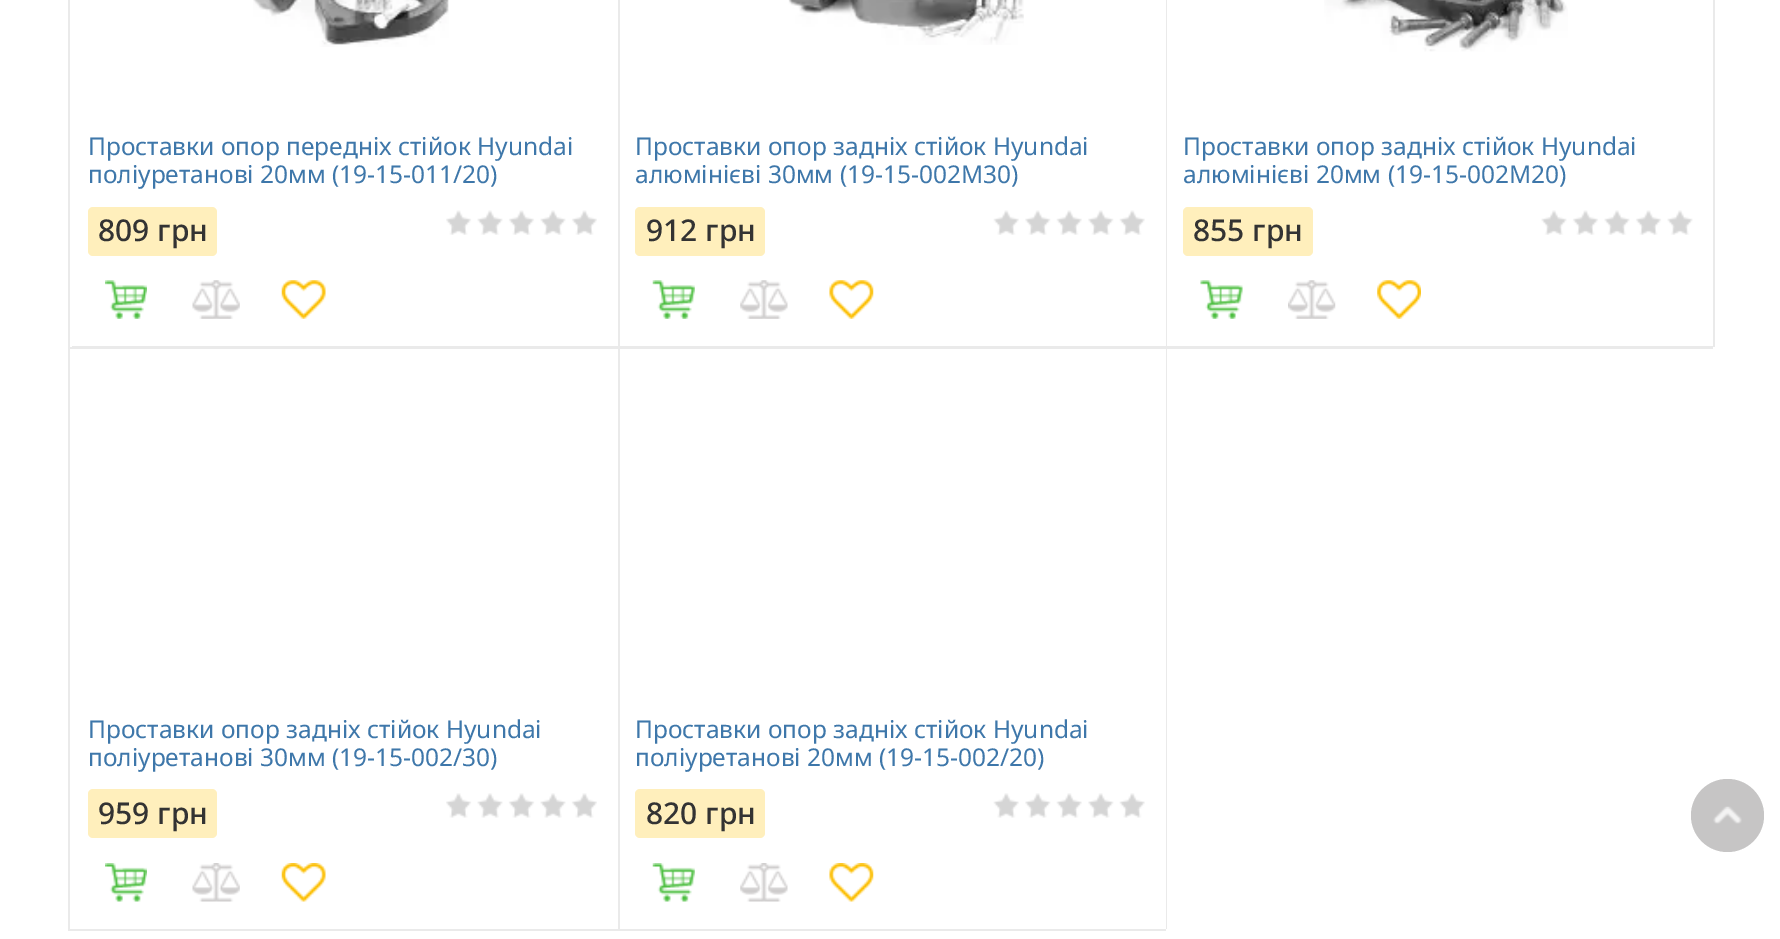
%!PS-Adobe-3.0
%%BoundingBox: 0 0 1780 939
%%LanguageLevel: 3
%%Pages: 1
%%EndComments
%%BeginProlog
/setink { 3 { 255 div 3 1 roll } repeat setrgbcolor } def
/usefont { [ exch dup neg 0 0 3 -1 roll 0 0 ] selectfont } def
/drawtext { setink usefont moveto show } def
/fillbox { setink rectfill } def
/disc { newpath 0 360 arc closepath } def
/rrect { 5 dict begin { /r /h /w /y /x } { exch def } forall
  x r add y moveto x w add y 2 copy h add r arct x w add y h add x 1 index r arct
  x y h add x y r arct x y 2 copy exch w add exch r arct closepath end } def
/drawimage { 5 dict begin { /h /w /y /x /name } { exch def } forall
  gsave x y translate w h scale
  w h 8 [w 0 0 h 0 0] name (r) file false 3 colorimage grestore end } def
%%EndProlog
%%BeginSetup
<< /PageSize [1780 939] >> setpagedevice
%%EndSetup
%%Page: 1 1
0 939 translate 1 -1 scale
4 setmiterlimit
0 0 1780 939 255 255 255 fillbox
68 0 2 931 234 234 234 fillbox
70 347 1643 2 234 234 234 fillbox
72 346 moveto 72 347 lineto 620 347 lineto 620 -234 lineto 618 -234 lineto 618 346 lineto closepath fill
(assets/img1.rgb) 253 0 196 47 drawimage
(Проставки опор передніх стійок Hyundai) 88 155 /NotoSans-Regular 24.5 62 119 170 drawtext
(поліуретанові 20мм \(19-15-011/20\)) 88 183 /NotoSans-Regular 24.5 62 119 170 drawtext
255 239 188 setink
88 207 129 49 5 rrect fill
(809 грн) 98 241 /NotoSans-Medium 30 51 51 51 drawtext
(assets/img2.rgb) 446 210 151 25 drawimage
(assets/img3.rgb) 105 280 42 39 drawimage
(assets/img4.rgb) 192 280 48 39 drawimage
(assets/img5.rgb) 281 280 45 39 drawimage
234 234 234 setink
620 346 moveto 620 347 lineto 1167 347 lineto 1167 -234 lineto 1166 -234 lineto 1166 346 lineto closepath fill
(assets/img6.rgb) 788 0 236 45 drawimage
(Проставки опор задніх стійок Hyundai) 635 155 /NotoSans-Regular 24.5 62 119 170 drawtext
(алюмінієві 30мм \(19-15-002М30\)) 635 183 /NotoSans-Regular 24.5 62 119 170 drawtext
255 239 188 setink
635 207 130 49 5 rrect fill
(912 грн) 646 241 /NotoSans-Medium 30 51 51 51 drawtext
(assets/img7.rgb) 993 210 152 25 drawimage
(assets/img8.rgb) 652 280 43 39 drawimage
(assets/img9.rgb) 740 280 48 39 drawimage
(assets/img10.rgb) 829 280 45 39 drawimage
234 234 234 setink
1167 346 moveto 1167 347 lineto 1715 347 lineto 1715 -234 lineto 1713 -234 lineto 1713 346 lineto closepath fill
(assets/img11.rgb) 1324 0 244 52 drawimage
(Проставки опор задніх стійок Hyundai) 1183 155 /NotoSans-Regular 24.5 62 119 170 drawtext
(алюмінієві 20мм \(19-15-002М20\)) 1183 183 /NotoSans-Regular 24.5 62 119 170 drawtext
255 239 188 setink
1183 207 130 49 5 rrect fill
(855 грн) 1193 241 /NotoSans-Medium 30 51 51 51 drawtext
(assets/img12.rgb) 1541 210 152 25 drawimage
(assets/img13.rgb) 1200 280 43 39 drawimage
(assets/img14.rgb) 1288 280 48 39 drawimage
(assets/img15.rgb) 1377 280 44 39 drawimage
70 929 1096 2 234 234 234 fillbox
72 348 moveto 618 348 lineto 618 929 lineto 620 929 lineto 620 348 lineto closepath fill
(Проставки опор задніх стійок Hyundai) 88 738 /NotoSans-Regular 24.5 62 119 170 drawtext
(поліуретанові 30мм \(19-15-002/30\)) 88 766 /NotoSans-Regular 24.5 62 119 170 drawtext
255 239 188 setink
88 789 129 49 5 rrect fill
(959 грн) 98 824 /NotoSans-Medium 30 51 51 51 drawtext
(assets/img16.rgb) 446 793 151 25 drawimage
(assets/img17.rgb) 105 863 42 39 drawimage
(assets/img18.rgb) 192 863 48 39 drawimage
(assets/img19.rgb) 281 863 45 39 drawimage
234 234 234 setink
620 348 moveto 1166 348 lineto 1166 929 lineto 1167 929 lineto 1167 348 lineto closepath fill
(Проставки опор задніх стійок Hyundai) 635 738 /NotoSans-Regular 24.5 62 119 170 drawtext
(поліуретанові 20мм \(19-15-002/20\)) 635 766 /NotoSans-Regular 24.5 62 119 170 drawtext
255 239 188 setink
635 789 130 49 5 rrect fill
(820 грн) 646 824 /NotoSans-Medium 30 51 51 51 drawtext
(assets/img20.rgb) 993 793 152 25 drawimage
(assets/img21.rgb) 652 863 43 39 drawimage
(assets/img22.rgb) 740 863 48 39 drawimage
(assets/img23.rgb) 829 863 45 39 drawimage
198 197 197 setink
1727.5 815.5 36.5 disc fill
(assets/img24.rgb) 1713 806 29 18 drawimage
showpage
%%EOF
